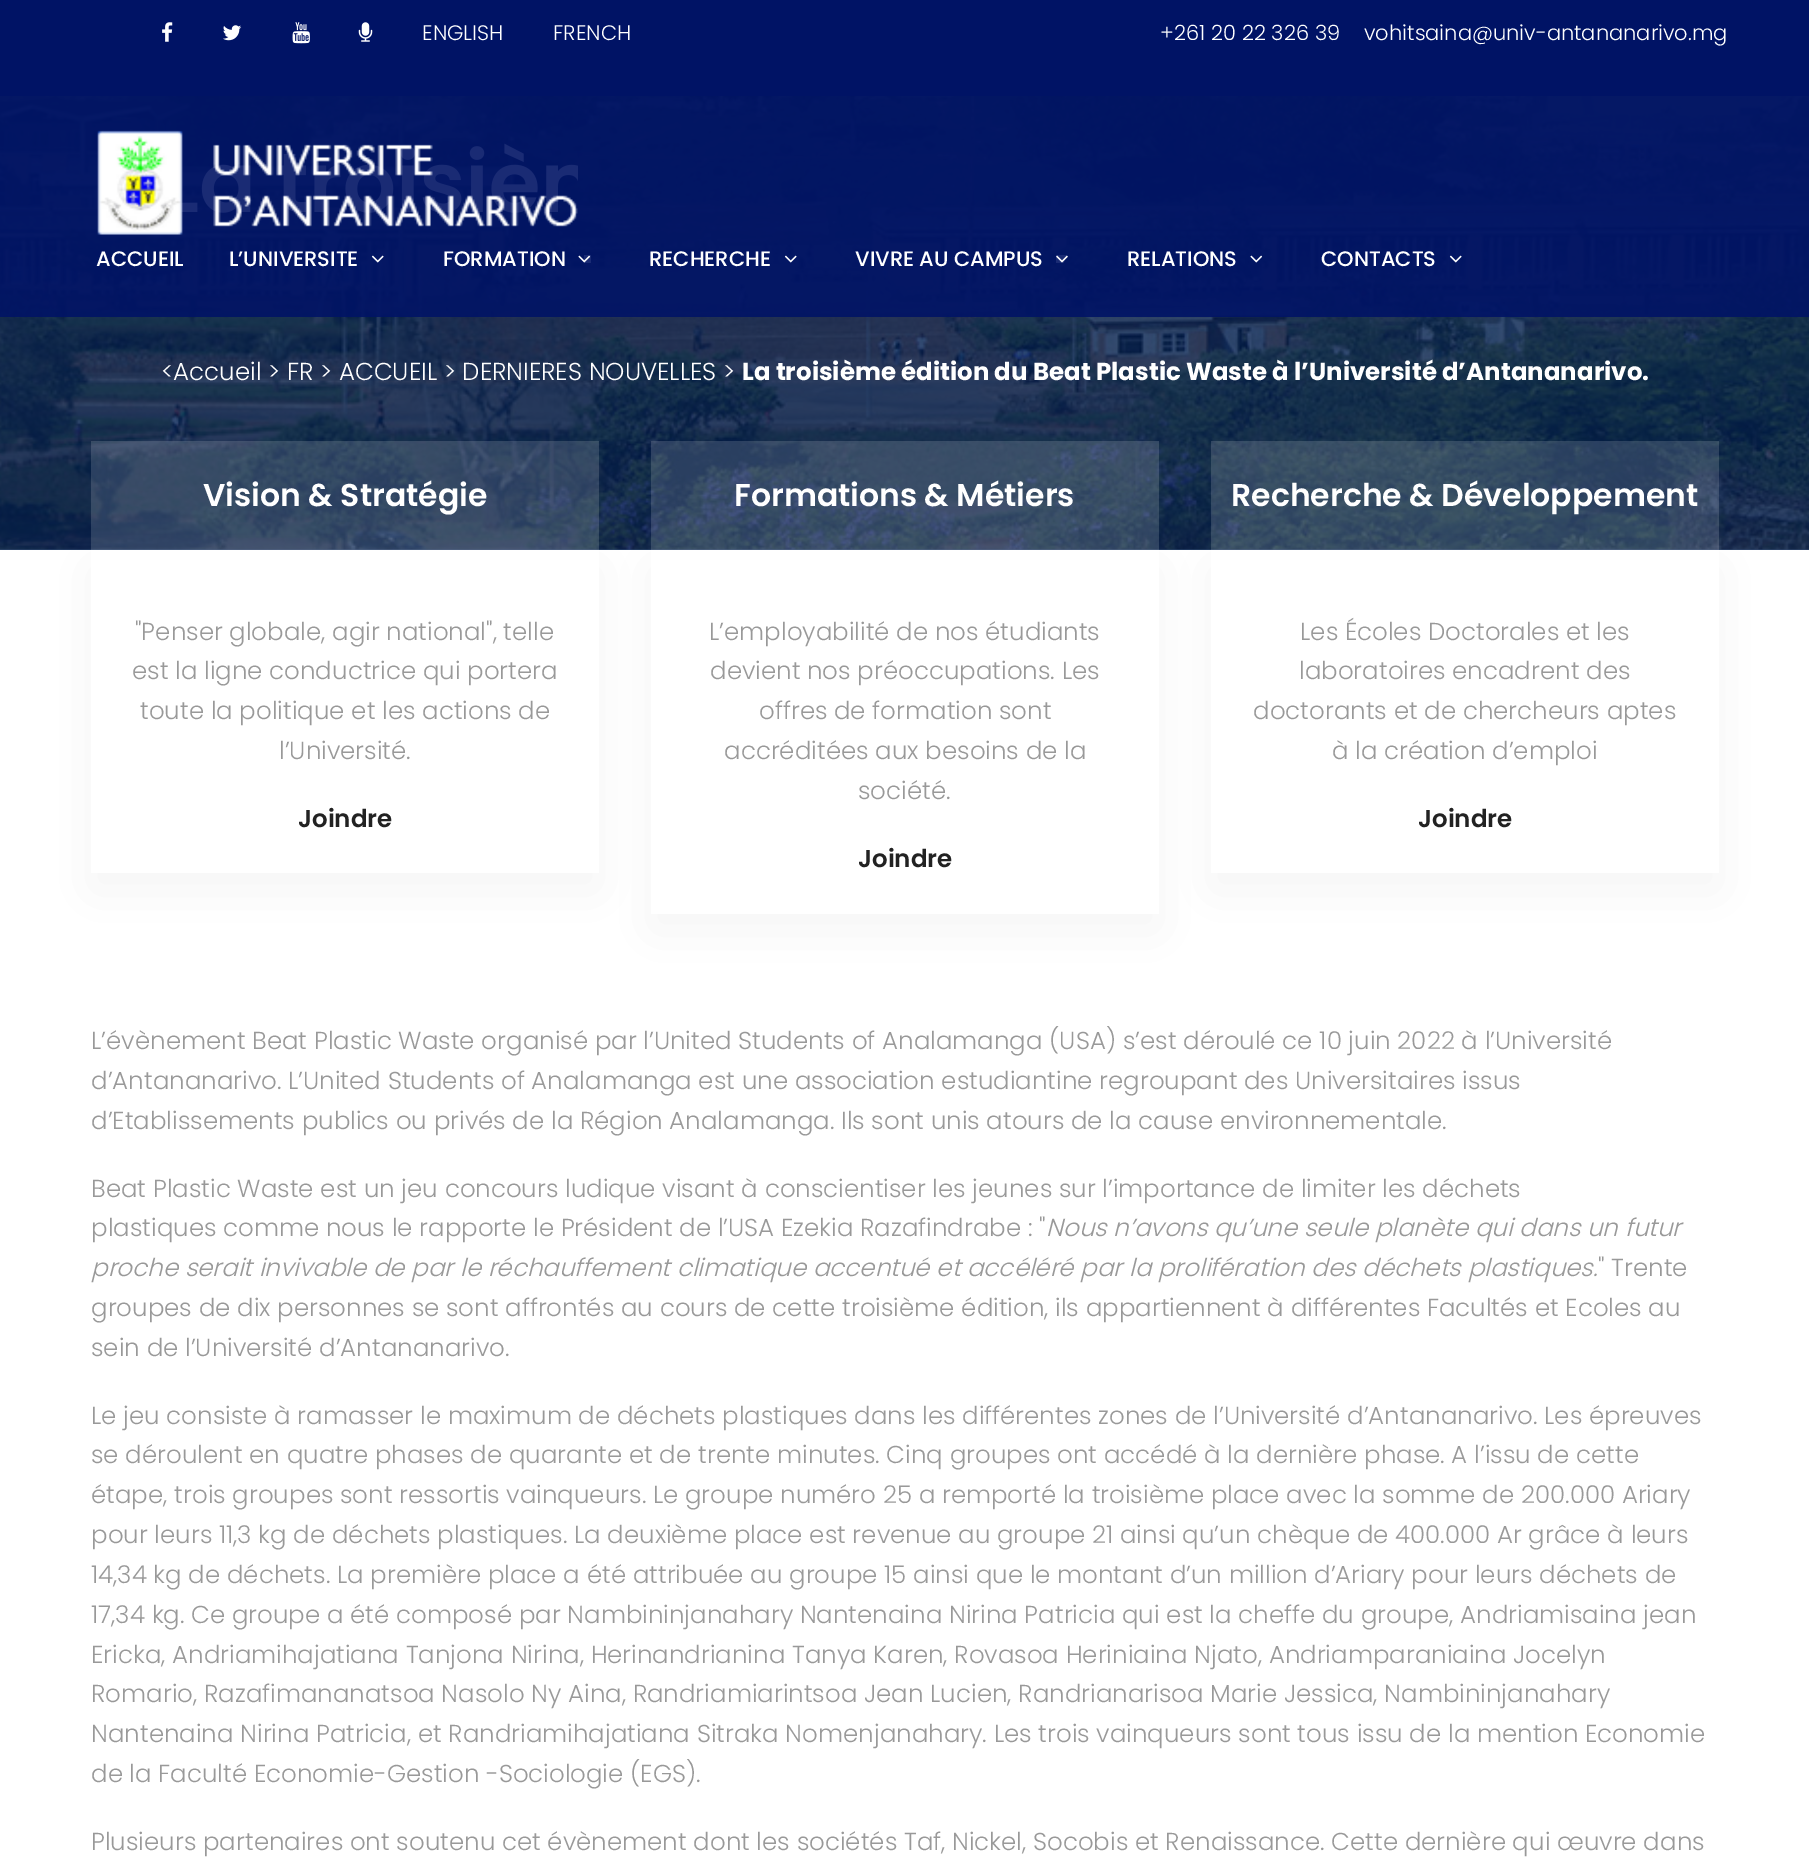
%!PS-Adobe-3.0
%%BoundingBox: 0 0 1809 1865
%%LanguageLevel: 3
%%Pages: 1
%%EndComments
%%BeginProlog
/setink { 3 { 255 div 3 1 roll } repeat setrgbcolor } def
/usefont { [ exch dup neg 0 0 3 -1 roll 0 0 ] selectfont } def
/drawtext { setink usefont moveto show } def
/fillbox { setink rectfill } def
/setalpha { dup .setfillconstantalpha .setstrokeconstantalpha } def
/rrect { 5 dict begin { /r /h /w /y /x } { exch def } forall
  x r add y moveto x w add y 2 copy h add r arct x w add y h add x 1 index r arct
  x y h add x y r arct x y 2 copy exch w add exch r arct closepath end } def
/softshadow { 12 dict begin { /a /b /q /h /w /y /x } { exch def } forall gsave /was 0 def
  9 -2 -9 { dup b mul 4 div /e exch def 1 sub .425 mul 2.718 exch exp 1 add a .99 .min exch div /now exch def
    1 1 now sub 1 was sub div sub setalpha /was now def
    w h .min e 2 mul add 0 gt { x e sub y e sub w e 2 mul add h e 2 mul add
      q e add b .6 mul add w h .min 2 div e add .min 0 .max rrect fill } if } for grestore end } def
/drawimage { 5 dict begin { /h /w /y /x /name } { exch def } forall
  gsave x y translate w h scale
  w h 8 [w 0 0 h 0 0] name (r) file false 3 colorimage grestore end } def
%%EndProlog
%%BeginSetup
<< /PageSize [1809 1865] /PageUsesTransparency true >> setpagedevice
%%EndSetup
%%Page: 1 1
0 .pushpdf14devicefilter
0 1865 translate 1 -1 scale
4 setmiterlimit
0 0 1809 1865 255 255 255 fillbox
0 549 1809 1 51 75 115 fillbox
(assets/img12.rgb) 0 96 1809 454 drawimage
0.9 setalpha
0 96 1809 221 0 19 101 fillbox
1 setalpha
0 0 1809 96 0 19 101 fillbox
(assets/img1.rgb) 162 22 11 20 drawimage
(assets/img2.rgb) 223 25 19 16 drawimage
(assets/img3.rgb) 292 22 18 22 drawimage
(assets/img4.rgb) 358 22 15 20 drawimage
(ENGLISH) 422 40 /Poppins-Light 21 255 255 255 drawtext
(FRENCH) 553 40 /Poppins-Light 21 255 255 255 drawtext
(+261 20 22 326 39) 1160 40 /Poppins-Light 21 255 255 255 drawtext
(vohitsaina@univ-antananarivo.mg) 1364 40 /Poppins-Light 21 255 255 255 drawtext
(assets/img5.rgb) 97 130 481 105 drawimage
(ACCUEIL) 96 266 /Poppins-Medium 21 255 255 255 drawtext
(L’UNIVERSITE) 229 266 /Poppins-Medium 21 255 255 255 drawtext
(assets/img6.rgb) 371 255 13 8 drawimage
(FORMATION) 443 266 /Poppins-Medium 21 255 255 255 drawtext
(assets/img7.rgb) 578 255 13 8 drawimage
(RECHERCHE) 649 266 /Poppins-Medium 21 255 255 255 drawtext
(assets/img8.rgb) 784 255 13 8 drawimage
(VIVRE AU CAMPUS) 855 266 /Poppins-Medium 21 255 255 255 drawtext
(assets/img9.rgb) 1056 255 12 8 drawimage
(RELATIONS) 1127 266 /Poppins-Medium 21 255 255 255 drawtext
(assets/img10.rgb) 1250 255 13 8 drawimage
(CONTACTS) 1321 266 /Poppins-Medium 21 255 255 255 drawtext
(assets/img11.rgb) 1449 255 13 8 drawimage
(<Accueil > FR > ACCUEIL > DERNIERES NOUVELLES >) 161 380 /Poppins-Light 24.5 255 255 255 drawtext
(La troisième édition du Beat Plastic Waste à l’Université d’Antananarivo.) 742 380 /Poppins-Bold 24.5 255 255 255 drawtext
0.15 setalpha
91 441 508 109 255 255 255 fillbox
1 setalpha
153 153 153 setink
91 567 508 324 0 26 0.1 softshadow
(Vision & Stratégie) 203 506 /Poppins-SemiBold 31.5 255 255 255 drawtext
91 550 508 323 255 255 255 fillbox
("Penser globale, agir national", telle) 135 640 /Poppins-Light 24.5 153 153 153 drawtext
(est la ligne conductrice qui portera) 132 679 /Poppins-Light 24.5 153 153 153 drawtext
(toute la politique et les actions de) 140 719 /Poppins-Light 24.5 153 153 153 drawtext
(l’Université.) 279 759 /Poppins-Light 24.5 153 153 153 drawtext
(Joindre) 298 827 /Poppins-SemiBold 24.5 34 34 34 drawtext
0.15 setalpha
651 441 508 109 255 255 255 fillbox
1 setalpha
153 153 153 setink
651 567 508 364 0 26 0.1 softshadow
(Formations & Métiers) 734 506 /Poppins-SemiBold 31.5 255 255 255 drawtext
651 550 508 364 255 255 255 fillbox
(L’employabilité de nos étudiants) 709 640 /Poppins-Light 24.5 153 153 153 drawtext
(devient nos préoccupations. Les) 710 679 /Poppins-Light 24.5 153 153 153 drawtext
(offres de formation sont) 759 719 /Poppins-Light 24.5 153 153 153 drawtext
(accréditées aux besoins de la) 724 759 /Poppins-Light 24.5 153 153 153 drawtext
(société.) 858 799 /Poppins-Light 24.5 153 153 153 drawtext
(Joindre) 858 867 /Poppins-SemiBold 24.5 34 34 34 drawtext
0.15 setalpha
1211 441 508 109 255 255 255 fillbox
1 setalpha
153 153 153 setink
1211 567 508 324 0 26 0.1 softshadow
(Recherche & Développement) 1231 506 /Poppins-SemiBold 31.5 255 255 255 drawtext
1211 550 508 323 255 255 255 fillbox
(Les Écoles Doctorales et les) 1300 640 /Poppins-Light 24.5 153 153 153 drawtext
(laboratoires encadrent des) 1299 679 /Poppins-Light 24.5 153 153 153 drawtext
(doctorants et de chercheurs aptes) 1253 719 /Poppins-Light 24.5 153 153 153 drawtext
(à la création d’emploi) 1332 759 /Poppins-Light 24.5 153 153 153 drawtext
(Joindre) 1418 827 /Poppins-SemiBold 24.5 34 34 34 drawtext
(L’évènement Beat Plastic Waste organisé par l’United Students of Analamanga \(USA\) s’est déroulé ce 10 juin 2022 à l’Université) 91 1049 /Poppins-Light 24.5 153 153 153 drawtext
(d’Antananarivo. L’United Students of Analamanga est une association estudiantine regroupant des Universitaires issus) 91 1089 /Poppins-Light 24.5 153 153 153 drawtext
(d’Etablissements publics ou privés de la Région Analamanga. Ils sont unis atours de la cause environnementale.) 91 1129 /Poppins-Light 24.5 153 153 153 drawtext
(Beat Plastic Waste est un jeu concours ludique visant à conscientiser les jeunes sur l’importance de limiter les déchets) 91 1197 /Poppins-Light 24.5 153 153 153 drawtext
(plastiques comme nous le rapporte le Président de l’USA Ezekia Razafindrabe : ") 91 1236 /Poppins-Light 24.5 153 153 153 drawtext
(Nous n’avons qu’une seule planète qui dans un futur) 1046 1236 /Poppins-LightItalic 24.5 153 153 153 drawtext
(proche serait invivable de par le réchauffement climatique accentué et accéléré par la prolifération des déchets plastiques.) 91 1276 /Poppins-LightItalic 24.5 153 153 153 drawtext
(" Trente) 1598 1276 /Poppins-Light 24.5 153 153 153 drawtext
(groupes de dix personnes se sont affrontés au cours de cette troisième édition, ils appartiennent à différentes Facultés et Ecoles au) 91 1316 /Poppins-Light 24.5 153 153 153 drawtext
(sein de l’Université d’Antananarivo.) 91 1356 /Poppins-Light 24.5 153 153 153 drawtext
(Le jeu consiste à ramasser le maximum de déchets plastiques dans les différentes zones de l’Université d’Antananarivo. Les épreuves) 91 1424 /Poppins-Light 24.5 153 153 153 drawtext
(se déroulent en quatre phases de quarante et de trente minutes. Cinq groupes ont accédé à la dernière phase. A l’issu de cette) 91 1463 /Poppins-Light 24.5 153 153 153 drawtext
(étape, trois groupes sont ressortis vainqueurs. Le groupe numéro 25 a remporté la troisième place avec la somme de 200.000 Ariary) 91 1503 /Poppins-Light 24.5 153 153 153 drawtext
(pour leurs 11,3 kg de déchets plastiques. La deuxième place est revenue au groupe 21 ainsi qu’un chèque de 400.000 Ar grâce à leurs) 91 1543 /Poppins-Light 24.5 153 153 153 drawtext
(14,34 kg de déchets. La première place a été attribuée au groupe 15 ainsi que le montant d’un million d’Ariary pour leurs déchets de) 91 1583 /Poppins-Light 24.5 153 153 153 drawtext
(17,34 kg. Ce groupe a été composé par Nambininjanahary Nantenaina Nirina Patricia qui est la cheffe du groupe, Andriamisaina jean) 91 1623 /Poppins-Light 24.5 153 153 153 drawtext
(Ericka, Andriamihajatiana Tanjona Nirina, Herinandrianina Tanya Karen, Rovasoa Heriniaina Njato, Andriamparaniaina Jocelyn) 91 1663 /Poppins-Light 24.5 153 153 153 drawtext
(Romario, Razafimananatsoa Nasolo Ny Aina, Randriamiarintsoa Jean Lucien, Randrianarisoa Marie Jessica, Nambininjanahary) 91 1702 /Poppins-Light 24.5 153 153 153 drawtext
(Nantenaina Nirina Patricia, et Randriamihajatiana Sitraka Nomenjanahary. Les trois vainqueurs sont tous issu de la mention Economie) 91 1742 /Poppins-Light 24.5 153 153 153 drawtext
(de la Faculté Economie-Gestion -Sociologie \(EGS\).) 91 1782 /Poppins-Light 24.5 153 153 153 drawtext
(Plusieurs partenaires ont soutenu cet évènement dont les sociétés Taf, Nickel, Socobis et Renaissance. Cette dernière qui œuvre dans) 91 1850 /Poppins-Light 24.5 153 153 153 drawtext
.poppdf14devicefilter showpage
%%EOF
